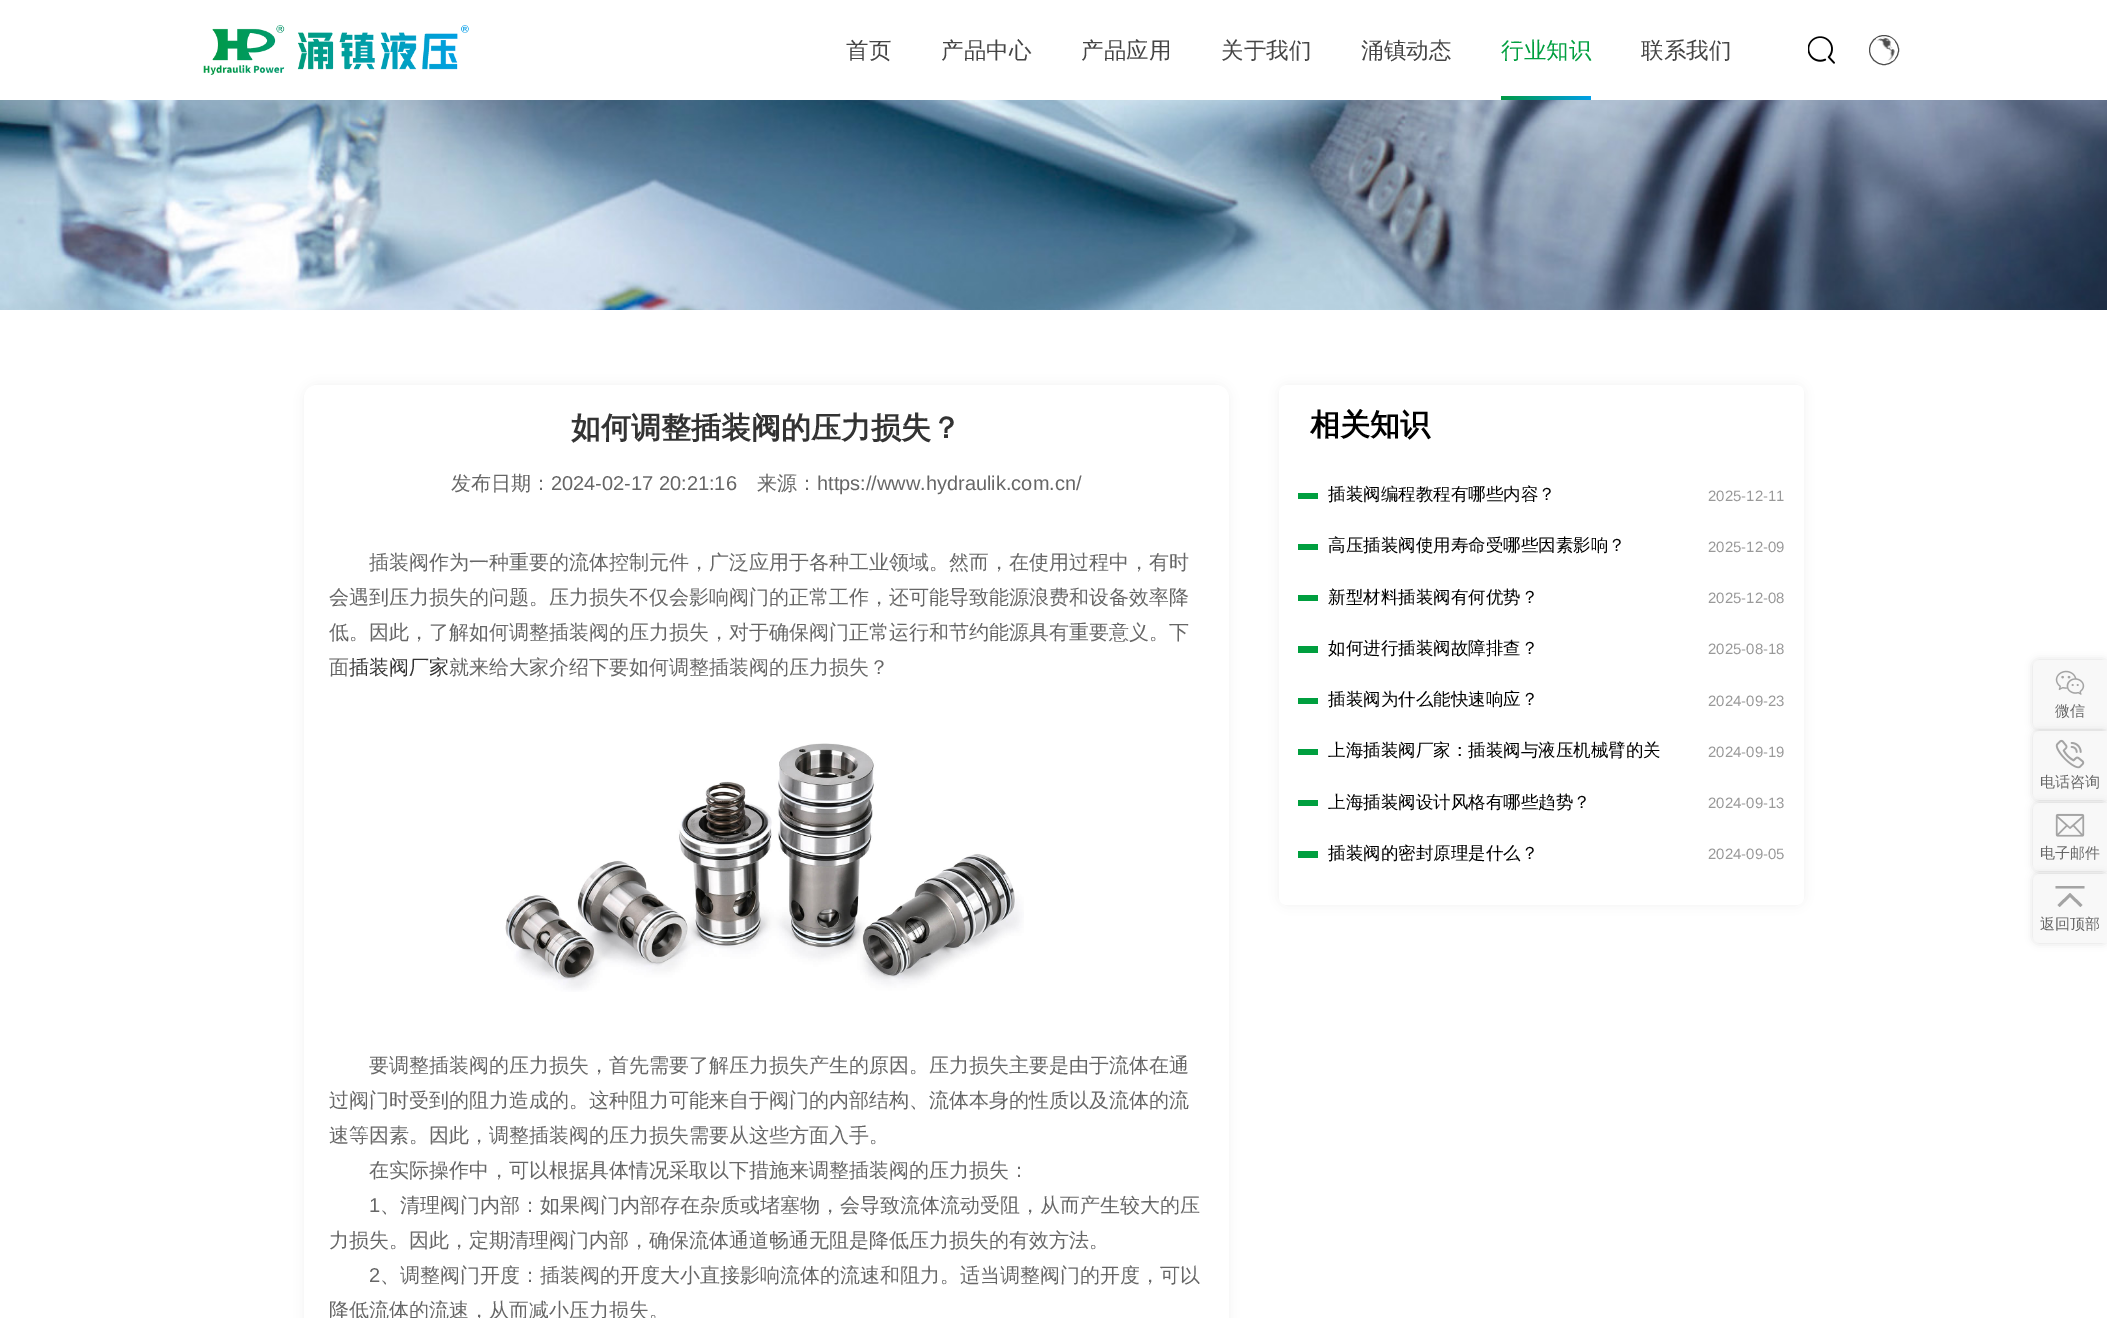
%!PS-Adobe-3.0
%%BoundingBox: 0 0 2107 1318
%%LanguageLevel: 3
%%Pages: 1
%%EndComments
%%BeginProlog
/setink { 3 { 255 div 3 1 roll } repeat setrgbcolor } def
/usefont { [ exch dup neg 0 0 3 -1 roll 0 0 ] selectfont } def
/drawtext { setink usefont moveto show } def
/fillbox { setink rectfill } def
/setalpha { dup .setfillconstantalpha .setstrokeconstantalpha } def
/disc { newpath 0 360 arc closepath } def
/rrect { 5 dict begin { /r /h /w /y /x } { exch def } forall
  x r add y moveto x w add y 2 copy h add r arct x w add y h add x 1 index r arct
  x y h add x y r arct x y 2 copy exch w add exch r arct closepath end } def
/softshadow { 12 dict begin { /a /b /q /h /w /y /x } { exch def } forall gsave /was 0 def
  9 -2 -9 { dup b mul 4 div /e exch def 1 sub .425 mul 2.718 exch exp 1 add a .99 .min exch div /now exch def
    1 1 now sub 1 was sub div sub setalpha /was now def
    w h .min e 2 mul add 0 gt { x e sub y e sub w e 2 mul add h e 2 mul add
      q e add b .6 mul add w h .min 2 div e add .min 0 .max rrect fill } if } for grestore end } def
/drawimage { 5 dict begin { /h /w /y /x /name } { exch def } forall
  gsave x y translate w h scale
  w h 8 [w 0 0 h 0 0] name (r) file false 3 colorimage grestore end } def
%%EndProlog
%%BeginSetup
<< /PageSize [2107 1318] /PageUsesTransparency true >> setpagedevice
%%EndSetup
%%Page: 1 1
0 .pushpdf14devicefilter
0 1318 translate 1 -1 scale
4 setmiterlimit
0 0 2107 1318 255 255 255 fillbox
(assets/img1.rgb) 203 25 266 50 drawimage
(首页) 846 58 /WenQuanYiZenHei-Medium 22.5 68 68 68 drawtext
(产品中心) 941 58 /WenQuanYiZenHei-Medium 22.5 68 68 68 drawtext
(产品应用) 1081 58 /WenQuanYiZenHei-Medium 22.5 68 68 68 drawtext
(关于我们) 1221 58 /WenQuanYiZenHei-Medium 22.5 68 68 68 drawtext
(涌镇动态) 1361 58 /WenQuanYiZenHei-Medium 22.5 68 68 68 drawtext
(行业知识) 1501 58 /WenQuanYiZenHei-Medium 22.5 0 159 63 drawtext
gsave 1501 96 moveto 1591 96 lineto 1591 100 lineto 1501 100 lineto closepath clip newpath
<< /ShadingType 2 /ColorSpace /DeviceRGB /Coords [1501 98 1591 98] /Extend [true true] /Function << /FunctionType 2 /Domain [0 1] /C0 [0 0.6 0.267] /C1 [0 0.627 0.914] /N 1 >> >> shfill grestore
(联系我们) 1641 58 /WenQuanYiZenHei-Medium 22.5 68 68 68 drawtext
(assets/img2.rgb) 1808 36 27 28 drawimage
77 77 77 setink
1884 50 14.5 disc stroke
(assets/img3.rgb) 1876 37 19 24 drawimage
(assets/img4.rgb) 0 100 2107 210 drawimage
0 0 0 setink
304 385 925 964 13 6 0.05 softshadow
255 255 255 setink
304 385 925 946 13 rrect fill
(如何调整插装阀的压力损失？) 571 438 /WenQuanYiZenHei-Bold 30 51 51 51 drawtext
(发布日期：) 451 490 /WenQuanYiZenHei-Medium 20 102 102 102 drawtext
(2024-02-17 20:21:16) 551 490 /LiberationSans-Regular 20 102 102 102 drawtext
(来源：) 757 490 /WenQuanYiZenHei-Medium 20 102 102 102 drawtext
(https://www.hydraulik.com.cn/) 817 490 /LiberationSans-Regular 20 102 102 102 drawtext
(插装阀作为一种重要的流体控制元件，广泛应用于各种工业领域。然而，在使用过程中，有时) 369 569 /WenQuanYiZenHei-Medium 20 102 102 102 drawtext
(会遇到压力损失的问题。压力损失不仅会影响阀门的正常工作，还可能导致能源浪费和设备效率降) 329 604 /WenQuanYiZenHei-Medium 20 102 102 102 drawtext
(低。因此，了解如何调整插装阀的压力损失，对于确保阀门正常运行和节约能源具有重要意义。下) 329 639 /WenQuanYiZenHei-Medium 20 102 102 102 drawtext
(面) 329 674 /WenQuanYiZenHei-Medium 20 102 102 102 drawtext
(插装阀厂家) 349 674 /WenQuanYiZenHei-Medium 20 51 51 51 drawtext
(就来给大家介绍下要如何调整插装阀的压力损失？) 449 674 /WenQuanYiZenHei-Medium 20 102 102 102 drawtext
(assets/img5.rgb) 505 743 519 249 drawimage
(要调整插装阀的压力损失，首先需要了解压力损失产生的原因。压力损失主要是由于流体在通) 369 1072 /WenQuanYiZenHei-Medium 20 102 102 102 drawtext
(过阀门时受到的阻力造成的。这种阻力可能来自于阀门的内部结构、流体本身的性质以及流体的流) 329 1107 /WenQuanYiZenHei-Medium 20 102 102 102 drawtext
(速等因素。因此，调整插装阀的压力损失需要从这些方面入手。) 329 1142 /WenQuanYiZenHei-Medium 20 102 102 102 drawtext
(在实际操作中，可以根据具体情况采取以下措施来调整插装阀的压力损失：) 369 1177 /WenQuanYiZenHei-Medium 20 102 102 102 drawtext
(1) 369 1212 /LiberationSans-Regular 20 102 102 102 drawtext
(、清理阀门内部：如果阀门内部存在杂质或堵塞物，会导致流体流动受阻，从而产生较大的压) 380 1212 /WenQuanYiZenHei-Medium 20 102 102 102 drawtext
(力损失。因此，定期清理阀门内部，确保流体通道畅通无阻是降低压力损失的有效方法。) 329 1247 /WenQuanYiZenHei-Medium 20 102 102 102 drawtext
(2) 369 1282 /LiberationSans-Regular 20 102 102 102 drawtext
(、调整阀门开度：插装阀的开度大小直接影响流体的流速和阻力。适当调整阀门的开度，可以) 380 1282 /WenQuanYiZenHei-Medium 20 102 102 102 drawtext
(降低流体的流速，从而减小压力损失。) 329 1317 /WenQuanYiZenHei-Medium 20 102 102 102 drawtext
0 0 0 setink
1279 385 525 520 8 6 0.05 softshadow
255 255 255 setink
1279 385 525 520 8 rrect fill
(相关知识) 1310 435 /WenQuanYiZenHei-Bold 30 0 0 0 drawtext
1298 493 20 6 0 159 63 fillbox
(插装阀编程教程有哪些内容？) 1328 500 /WenQuanYiZenHei-Medium 17.5 0 0 0 drawtext
(2025-12-11) 1708 501 /LiberationSans-Regular 15 153 153 153 drawtext
1298 544 20 6 0 159 63 fillbox
(高压插装阀使用寿命受哪些因素影响？) 1328 551 /WenQuanYiZenHei-Medium 17.5 0 0 0 drawtext
(2025-12-09) 1708 552 /LiberationSans-Regular 15 153 153 153 drawtext
1298 595 20 6 0 159 63 fillbox
(新型材料插装阀有何优势？) 1328 603 /WenQuanYiZenHei-Medium 17.5 0 0 0 drawtext
(2025-12-08) 1708 603 /LiberationSans-Regular 15 153 153 153 drawtext
1298 646 20 7 0 159 63 fillbox
(如何进行插装阀故障排查？) 1328 654 /WenQuanYiZenHei-Medium 17.5 0 0 0 drawtext
(2025-08-18) 1708 654 /LiberationSans-Regular 15 153 153 153 drawtext
1298 698 20 6 0 159 63 fillbox
(插装阀为什么能快速响应？) 1328 705 /WenQuanYiZenHei-Medium 17.5 0 0 0 drawtext
(2024-09-23) 1708 706 /LiberationSans-Regular 15 153 153 153 drawtext
1298 749 20 6 0 159 63 fillbox
(上海插装阀厂家：插装阀与液压机械臂的关) 1328 756 /WenQuanYiZenHei-Medium 17.5 0 0 0 drawtext
(2024-09-19) 1708 757 /LiberationSans-Regular 15 153 153 153 drawtext
1298 800 20 6 0 159 63 fillbox
(上海插装阀设计风格有哪些趋势？) 1328 808 /WenQuanYiZenHei-Medium 17.5 0 0 0 drawtext
(2024-09-13) 1708 808 /LiberationSans-Regular 15 153 153 153 drawtext
1298 851 20 7 0 159 63 fillbox
(插装阀的密封原理是什么？) 1328 859 /WenQuanYiZenHei-Medium 17.5 0 0 0 drawtext
(2024-09-05) 1708 859 /LiberationSans-Regular 15 153 153 153 drawtext
gsave
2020 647 moveto 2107 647 lineto 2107 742 lineto 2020 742 lineto closepath 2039 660 moveto 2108 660 lineto 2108 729 lineto 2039 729 lineto 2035.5 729 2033 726.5 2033 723 curveto 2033 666 lineto 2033 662.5 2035.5 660 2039 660 curveto closepath eoclip newpath
0 0 0 setink
2033 660 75 69 6 4 0.13 softshadow
grestore
0.9 setalpha
247 247 247 setink
2039 660 moveto 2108 660 lineto 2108 729 lineto 2039 729 lineto 2035.5 729 2033 726.5 2033 723 curveto 2033 666 lineto 2033 662.5 2035.5 660 2039 660 curveto closepath fill
1 setalpha
(assets/img6.rgb) 2055 670 30 25 drawimage
(微信) 2055 716 /WenQuanYiZenHei-Medium 15 102 102 102 drawtext
gsave
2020 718 moveto 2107 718 lineto 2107 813 lineto 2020 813 lineto closepath 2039 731 moveto 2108 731 lineto 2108 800 lineto 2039 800 lineto 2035.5 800 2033 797.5 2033 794 curveto 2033 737 lineto 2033 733.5 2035.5 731 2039 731 curveto closepath eoclip newpath
0 0 0 setink
2033 731 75 69 6 4 0.13 softshadow
grestore
0.9 setalpha
247 247 247 setink
2039 731 moveto 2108 731 lineto 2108 800 lineto 2039 800 lineto 2035.5 800 2033 797.5 2033 794 curveto 2033 737 lineto 2033 733.5 2035.5 731 2039 731 curveto closepath fill
1 setalpha
(assets/img7.rgb) 2055 739 30 30 drawimage
(电话咨询) 2040 787 /WenQuanYiZenHei-Medium 15 102 102 102 drawtext
gsave
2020 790 moveto 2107 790 lineto 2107 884 lineto 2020 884 lineto closepath 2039 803 moveto 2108 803 lineto 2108 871 lineto 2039 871 lineto 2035.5 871 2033 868.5 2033 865 curveto 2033 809 lineto 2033 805.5 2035.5 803 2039 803 curveto closepath eoclip newpath
0 0 0 setink
2033 803 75 68 6 4 0.13 softshadow
grestore
0.9 setalpha
247 247 247 setink
2039 803 moveto 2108 803 lineto 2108 871 lineto 2039 871 lineto 2035.5 871 2033 868.5 2033 865 curveto 2033 809 lineto 2033 805.5 2035.5 803 2039 803 curveto closepath fill
1 setalpha
(assets/img8.rgb) 2055 813 30 24 drawimage
(电子邮件) 2040 858 /WenQuanYiZenHei-Medium 15 102 102 102 drawtext
gsave
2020 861 moveto 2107 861 lineto 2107 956 lineto 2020 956 lineto closepath 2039 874 moveto 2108 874 lineto 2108 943 lineto 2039 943 lineto 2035.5 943 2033 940.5 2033 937 curveto 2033 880 lineto 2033 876.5 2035.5 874 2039 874 curveto closepath eoclip newpath
0 0 0 setink
2033 874 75 69 6 4 0.13 softshadow
grestore
0.9 setalpha
247 247 247 setink
2039 874 moveto 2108 874 lineto 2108 943 lineto 2039 943 lineto 2035.5 943 2033 940.5 2033 937 curveto 2033 880 lineto 2033 876.5 2035.5 874 2039 874 curveto closepath fill
1 setalpha
164 164 164 setink
2057.5 905 moveto 2059.5 907 lineto 2070 897 lineto 2080.5 907 lineto 2082.5 905 lineto 2070 893 lineto closepath 2055.5 886 moveto 2084.5 886 lineto 2084.5 888.5 lineto 2055.5 888.5 lineto closepath fill
(返回顶部) 2040 929 /WenQuanYiZenHei-Medium 15 102 102 102 drawtext
.poppdf14devicefilter showpage
%%EOF
